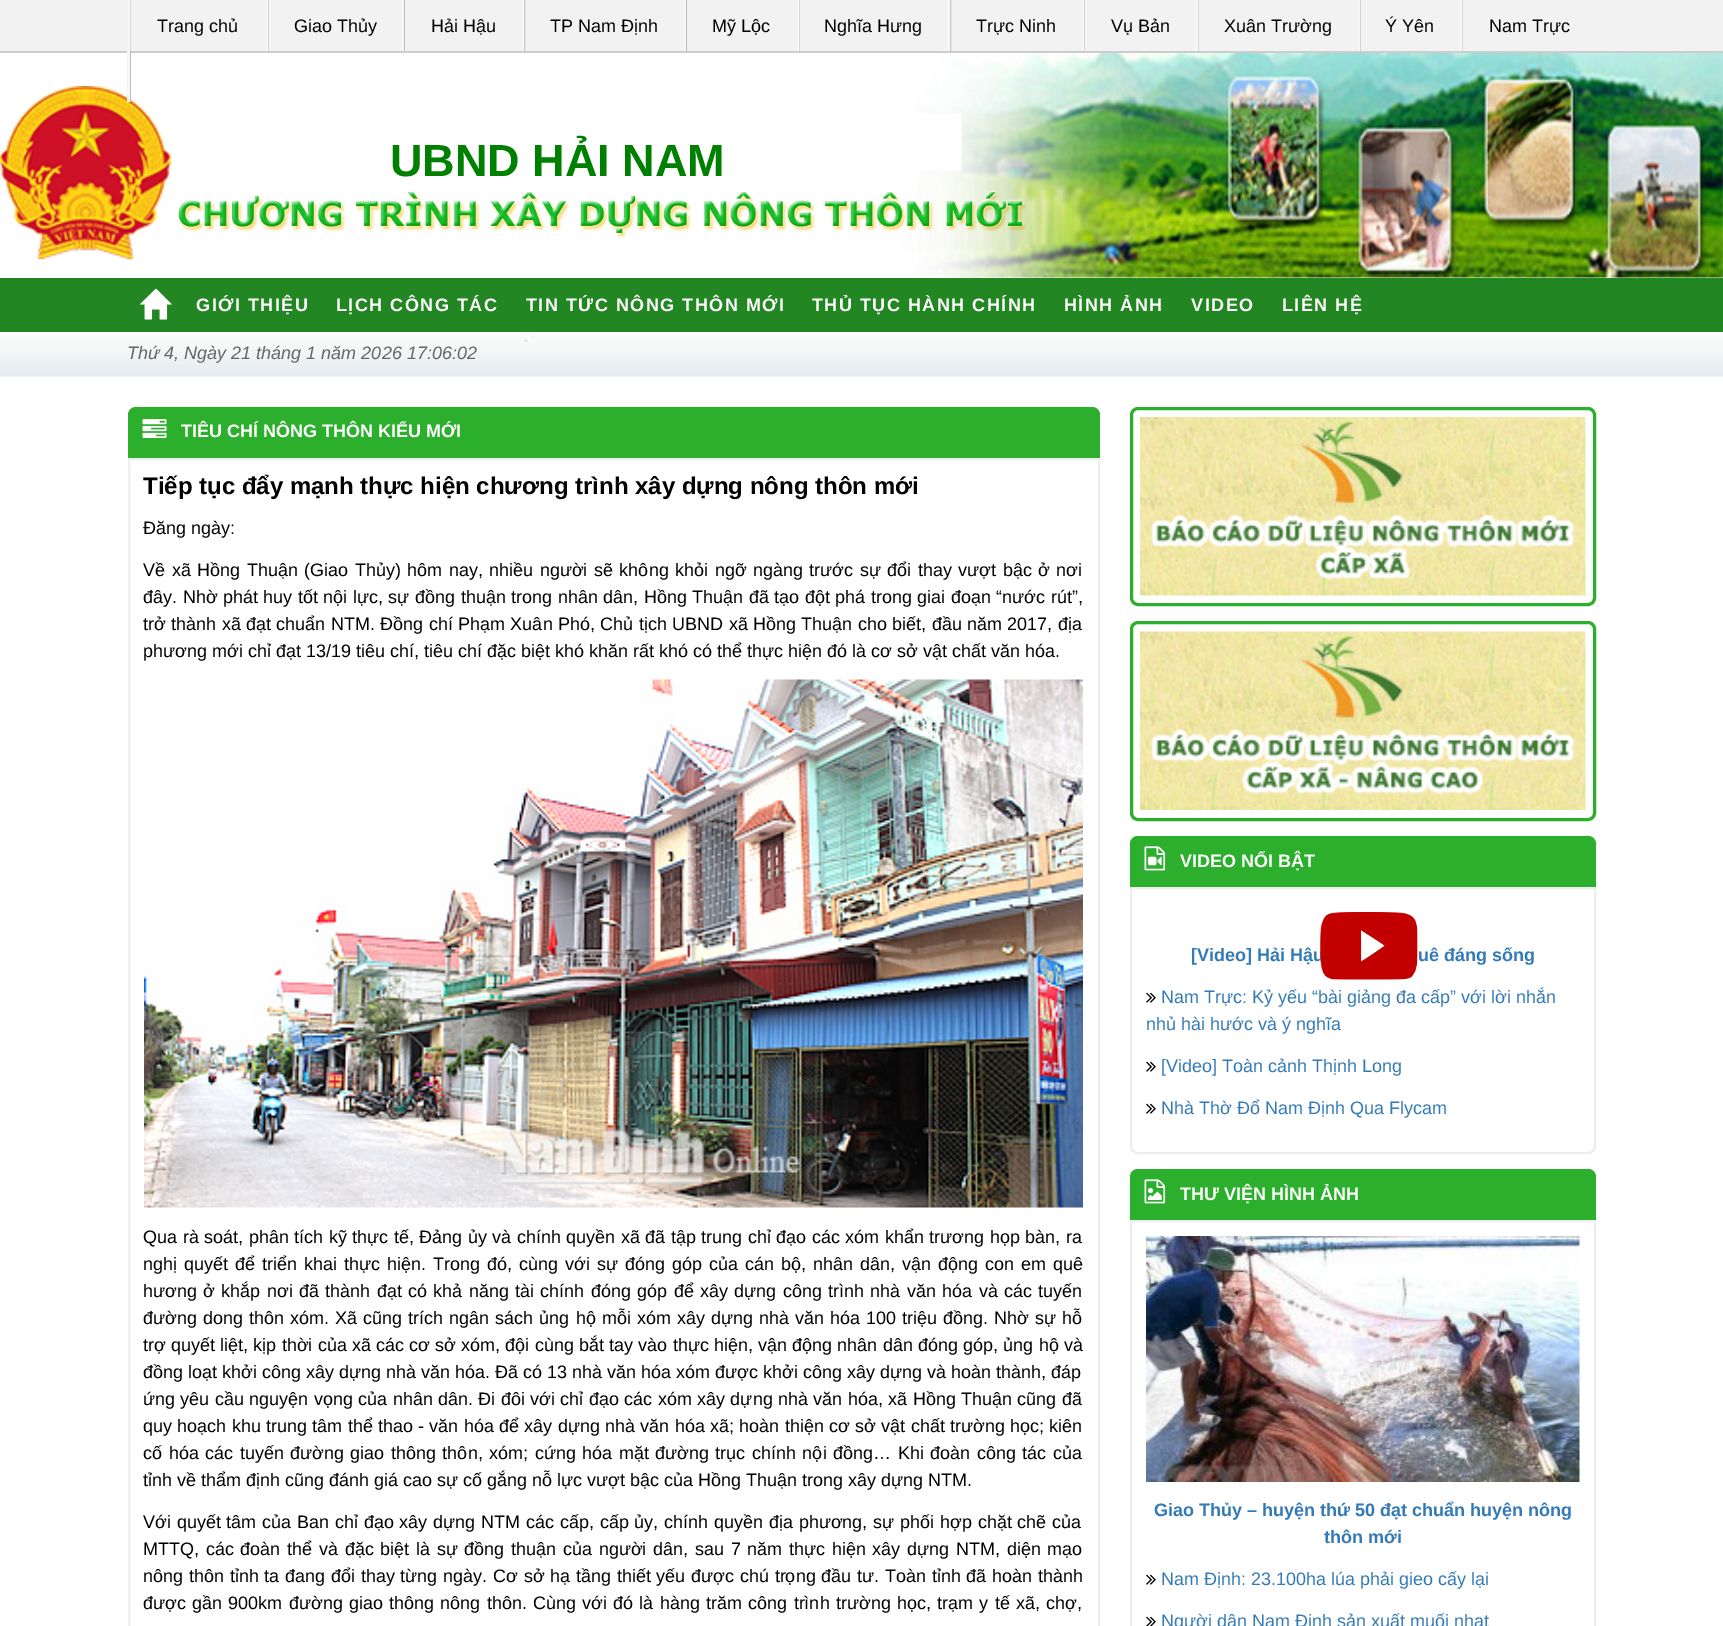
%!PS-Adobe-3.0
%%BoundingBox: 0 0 1723 1626
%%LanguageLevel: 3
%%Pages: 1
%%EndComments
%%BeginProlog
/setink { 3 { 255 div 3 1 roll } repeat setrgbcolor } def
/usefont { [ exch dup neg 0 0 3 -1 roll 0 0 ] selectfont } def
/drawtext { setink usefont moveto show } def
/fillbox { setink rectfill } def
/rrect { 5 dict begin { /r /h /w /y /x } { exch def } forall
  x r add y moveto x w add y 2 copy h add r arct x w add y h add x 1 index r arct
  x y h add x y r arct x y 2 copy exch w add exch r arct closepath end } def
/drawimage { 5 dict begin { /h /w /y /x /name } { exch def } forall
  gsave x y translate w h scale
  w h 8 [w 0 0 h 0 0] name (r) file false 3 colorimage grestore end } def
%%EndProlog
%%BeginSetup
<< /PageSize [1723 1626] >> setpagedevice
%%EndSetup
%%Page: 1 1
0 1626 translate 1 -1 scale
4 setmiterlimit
0 0 1723 1626 255 255 255 fillbox
0 0 1723 51 242 242 242 fillbox
0 51 1723 2 204 204 204 fillbox
(assets/img2.rgb) 0 53 1723 225 drawimage
128 0 2 102 247 247 247 fillbox
130 0 1 51 214 214 214 fillbox
(Trang chủ) 157 32 /LiberationSans-Regular 18 0 0 0 drawtext
266 0 2 51 247 247 247 fillbox
268 0 1 51 214 214 214 fillbox
(Giao Thủy) 294 32 /LiberationSans-Regular 18 0 0 0 drawtext
404 0 1 51 187 187 187 fillbox
402 0 2 51 247 247 247 fillbox
(Hải Hậu) 431 32 /LiberationSans-Regular 18 0 0 0 drawtext
524 0 2 51 187 187 187 fillbox
522 0 2 51 247 247 247 fillbox
(assets/img1.rgb) 524 0 2 51 drawimage
(TP Nam Định) 550 32 /LiberationSans-Regular 18 0 0 0 drawtext
686 0 1 51 187 187 187 fillbox
684 0 2 51 247 247 247 fillbox
(Mỹ Lộc) 712 32 /LiberationSans-Regular 18 0 0 0 drawtext
797 0 2 51 247 247 247 fillbox
799 0 1 51 214 214 214 fillbox
(Nghĩa Hưng) 824 32 /LiberationSans-Regular 18 0 0 0 drawtext
950 0 2 51 187 187 187 fillbox
948 0 2 51 247 247 247 fillbox
(assets/img1.rgb) 950 0 2 51 drawimage
(Trực Ninh) 976 32 /LiberationSans-Regular 18 0 0 0 drawtext
1082 0 2 51 247 247 247 fillbox
1084 0 1 51 214 214 214 fillbox
(Vụ Bản) 1111 32 /LiberationSans-Regular 18 0 0 0 drawtext
1196 0 2 51 247 247 247 fillbox
1198 0 1 51 214 214 214 fillbox
(Xuân Trường) 1224 32 /LiberationSans-Regular 18 0 0 0 drawtext
1358 0 2 51 247 247 247 fillbox
1360 0 1 51 214 214 214 fillbox
(Ý Yên) 1385 32 /LiberationSans-Regular 18 0 0 0 drawtext
1460 0 2 51 247 247 247 fillbox
1462 0 1 51 214 214 214 fillbox
(Nam Trực) 1489 32 /LiberationSans-Regular 18 0 0 0 drawtext
127 51 1 51 242 242 242 fillbox
130 51 1 51 187 187 187 fillbox
(UBND HẢI NAM) 390 176 /LiberationSans-Bold 45 0 128 0 drawtext
0 278 1723 54 34 134 34 fillbox
(assets/img3.rgb) 139 288 33 32 drawimage
/LiberationSans-Bold 18 usefont
255 255 255 setink
196 311 moveto 1.5 0 (GIỚI THIỆU) ashow
336 311 moveto 1.5 0 (LỊCH CÔNG TÁC) ashow
526 311 moveto 1.5 0 (TIN TỨC NÔNG THÔN MỚI) ashow
812 311 moveto 1.5 0 (THỦ TỤC HÀNH CHÍNH) ashow
1064 311 moveto 1.5 0 (HÌNH ẢNH) ashow
1191 311 moveto 1.5 0 (VIDEO) ashow
1282 311 moveto 1.5 0 (LIÊN HỆ) ashow
(assets/img4.rgb) 0 334 1723 43 drawimage
(assets/img5.rgb) 525 335 5 7 drawimage
(Thứ 4, Ngày 21 tháng 1 năm 2026 17:06:02) 127 359 /LiberationSans-Italic 18 102 102 102 drawtext
44 175 44 setink
136 407 moveto 1092 407 lineto 1096.5 407 1100 410.5 1100 415 curveto 1100 458 lineto 128 458 lineto 128 415 lineto 128 410.5 131.5 407 136 407 curveto closepath fill
(assets/img6.rgb) 142 419 25 19 drawimage
(TIÊU CHÍ NÔNG THÔN KIỂU MỚI) 181 437 /LiberationSans-Bold 18 255 255 255 drawtext
238 238 238 setink
2 setlinewidth
129 459 970 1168 rectstroke
(Tiếp tục đẩy mạnh thực hiện chương trình xây dựng nông thôn mới) 143 494 /LiberationSans-Bold 24 0 0 0 drawtext
(Đăng ngày:) 143 534 /LiberationSans-Regular 18 0 0 0 drawtext
143 576 moveto 1.5 0 32 (Về xã Hồng Thuận \(Giao Thủy\) hôm nay, nhiều người sẽ không khỏi ngỡ ngàng trước sự đổi thay vượt bậc ở nơi) widthshow
143 603 moveto 0.5 0 32 (đây. Nhờ phát huy tốt nội lực, sự đồng thuận trong nhân dân, Hồng Thuận đã tạo đột phá trong giai đoạn “nước rút”,) widthshow
143 630 moveto 0.4 0 32 (trở thành xã đạt chuẩn NTM. Đồng chí Phạm Xuân Phó, Chủ tịch UBND xã Hồng Thuận cho biết, đầu năm 2017, địa) widthshow
(phương mới chỉ đạt 13/19 tiêu chí, tiêu chí đặc biệt khó khăn rất khó có thể thực hiện đó là cơ sở vật chất văn hóa.) 143 657 /LiberationSans-Regular 18 0 0 0 drawtext
(assets/img7.rgb) 144 679 939 529 drawimage
143 1243 moveto 0.5 0 32 (Qua rà soát, phân tích kỹ thực tế, Đảng ủy và chính quyền xã đã tập trung chỉ đạo các xóm khẩn trương họp bàn, ra) widthshow
143 1270 moveto 2 0 32 (nghị quyết để triển khai thực hiện. Trong đó, cùng với sự đóng góp của cán bộ, nhân dân, vận động con em quê) widthshow
143 1297 moveto 1.35 0 32 (hương ở khắp nơi đã thành đạt có khả năng tài chính đóng góp để xây dựng công trình nhà văn hóa và các tuyến) widthshow
143 1324 moveto 1.05 0 32 (đường dong thôn xóm. Xã cũng trích ngân sách ủng hộ mỗi xóm xây dựng nhà văn hóa 100 triệu đồng. Nhờ sự hỗ) widthshow
143 1351 moveto 0.2 0 32 (trợ quyết liệt, kịp thời của xã các cơ sở xóm, đội cùng bắt tay vào thực hiện, vận động nhân dân đóng góp, ủng hộ và) widthshow
(đồng loạt khởi công xây dựng nhà văn hóa. Đã có 13 nhà văn hóa xóm được khởi công xây dựng và hoàn thành, đáp) 143 1378 /LiberationSans-Regular 18 0 0 0 drawtext
143 1405 moveto 0.4 0 32 (ứng yêu cầu nguyện vọng của nhân dân. Đi đôi với chỉ đạo các xóm xây dựng nhà văn hóa, xã Hồng Thuận cũng đã) widthshow
143 1432 moveto 0.3 0 32 (quy hoạch khu trung tâm thể thao - văn hóa để xây dựng nhà văn hóa xã; hoàn thiện cơ sở vật chất trường học; kiên) widthshow
143 1459 moveto 1.5 0 32 (cố hóa các tuyến đường giao thông thôn, xóm; cứng hóa mặt đường trục chính nội đồng… Khi đoàn công tác của) widthshow
(tỉnh về thẩm định cũng đánh giá cao sự cố gắng nỗ lực vượt bậc của Hồng Thuận trong xây dựng NTM.) 143 1486 /LiberationSans-Regular 18 0 0 0 drawtext
143 1528 moveto 0.8 0 32 (Với quyết tâm của Ban chỉ đạo xây dựng NTM các cấp, cấp ủy, chính quyền địa phương, sự phối hợp chặt chẽ của) widthshow
143 1555 moveto 1.7 0 32 (MTTQ, các đoàn thể và đặc biệt là sự đồng thuận của người dân, sau 7 năm thực hiện xây dựng NTM, diện mạo) widthshow
143 1582 moveto 0.75 0 32 (nông thôn tỉnh ta đang đổi thay từng ngày. Cơ sở hạ tầng thiết yếu được chú trọng đầu tư. Toàn tỉnh đã hoàn thành) widthshow
143 1609 moveto 1.25 0 32 (được gần 900km đường giao thông nông thôn. Cùng với đó là hàng trăm công trình trường học, trạm y tế xã, chợ,) widthshow
44 175 44 setink
3 setlinewidth
1131.5 408.5 463 196 6.5 rrect stroke
(assets/img8.rgb) 1140 417 446 179 drawimage
1131.5 622.5 463 197 6.5 rrect stroke
(assets/img9.rgb) 1140 631 446 179 drawimage
1138 836 moveto 1588 836 lineto 1592.5 836 1596 839.5 1596 844 curveto 1596 887 lineto 1130 887 lineto 1130 844 lineto 1130 839.5 1133.5 836 1138 836 curveto closepath fill
(assets/img10.rgb) 1144 846 22 25 drawimage
(VIDEO NỔI BẬT) 1180 867 /LiberationSans-Bold 18 255 255 255 drawtext
238 238 238 setink
2 setlinewidth
1131 888 moveto 1595 888 lineto 1595 1146 lineto 1595 1150 1592 1153 1588 1153 curveto 1138 1153 lineto 1134 1153 1131 1150 1131 1146 curveto closepath stroke
([Video] Hải Hậu) 1191 961 /LiberationSans-Bold 18 51 122 183 drawtext
(assets/img11.rgb) 1320 912 98 68 drawimage
(uê đáng sống) 1418 961 /LiberationSans-Bold 18 51 122 183 drawtext
(assets/img12.rgb) 1146 992 10 11 drawimage
(Nam Trực: Kỷ yếu “bài giảng đa cấp” với lời nhắn) 1161 1003 /LiberationSans-Regular 18 51 122 183 drawtext
(nhủ hài hước và ý nghĩa) 1146 1030 /LiberationSans-Regular 18 51 122 183 drawtext
(assets/img12.rgb) 1146 1061 10 11 drawimage
([Video] Toàn cảnh Thịnh Long) 1161 1072 /LiberationSans-Regular 18 51 122 183 drawtext
(assets/img12.rgb) 1146 1103 10 11 drawimage
(Nhà Thờ Đổ Nam Định Qua Flycam) 1161 1114 /LiberationSans-Regular 18 51 122 183 drawtext
44 175 44 setink
1138 1169 moveto 1588 1169 lineto 1592.5 1169 1596 1172.5 1596 1177 curveto 1596 1220 lineto 1130 1220 lineto 1130 1177 lineto 1130 1172.5 1133.5 1169 1138 1169 curveto closepath fill
(assets/img13.rgb) 1144 1179 22 25 drawimage
(THƯ VIỆN HÌNH ẢNH) 1180 1200 /LiberationSans-Bold 18 255 255 255 drawtext
238 238 238 setink
1131 1221 464 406 rectstroke
(assets/img14.rgb) 1146 1236 434 246 drawimage
(Giao Thủy – huyện thứ 50 đạt chuẩn huyện nông) 1154 1516 /LiberationSans-Bold 18 51 122 183 drawtext
(thôn mới) 1324 1543 /LiberationSans-Bold 18 51 122 183 drawtext
(assets/img12.rgb) 1146 1574 10 11 drawimage
(Nam Định: 23.100ha lúa phải gieo cấy lại) 1161 1585 /LiberationSans-Regular 18 51 122 183 drawtext
(assets/img15.rgb) 1146 1616 10 10 drawimage
(Người dân Nam Định sản xuất muối nhạt) 1161 1627 /LiberationSans-Regular 18 51 122 183 drawtext
showpage
%%EOF
